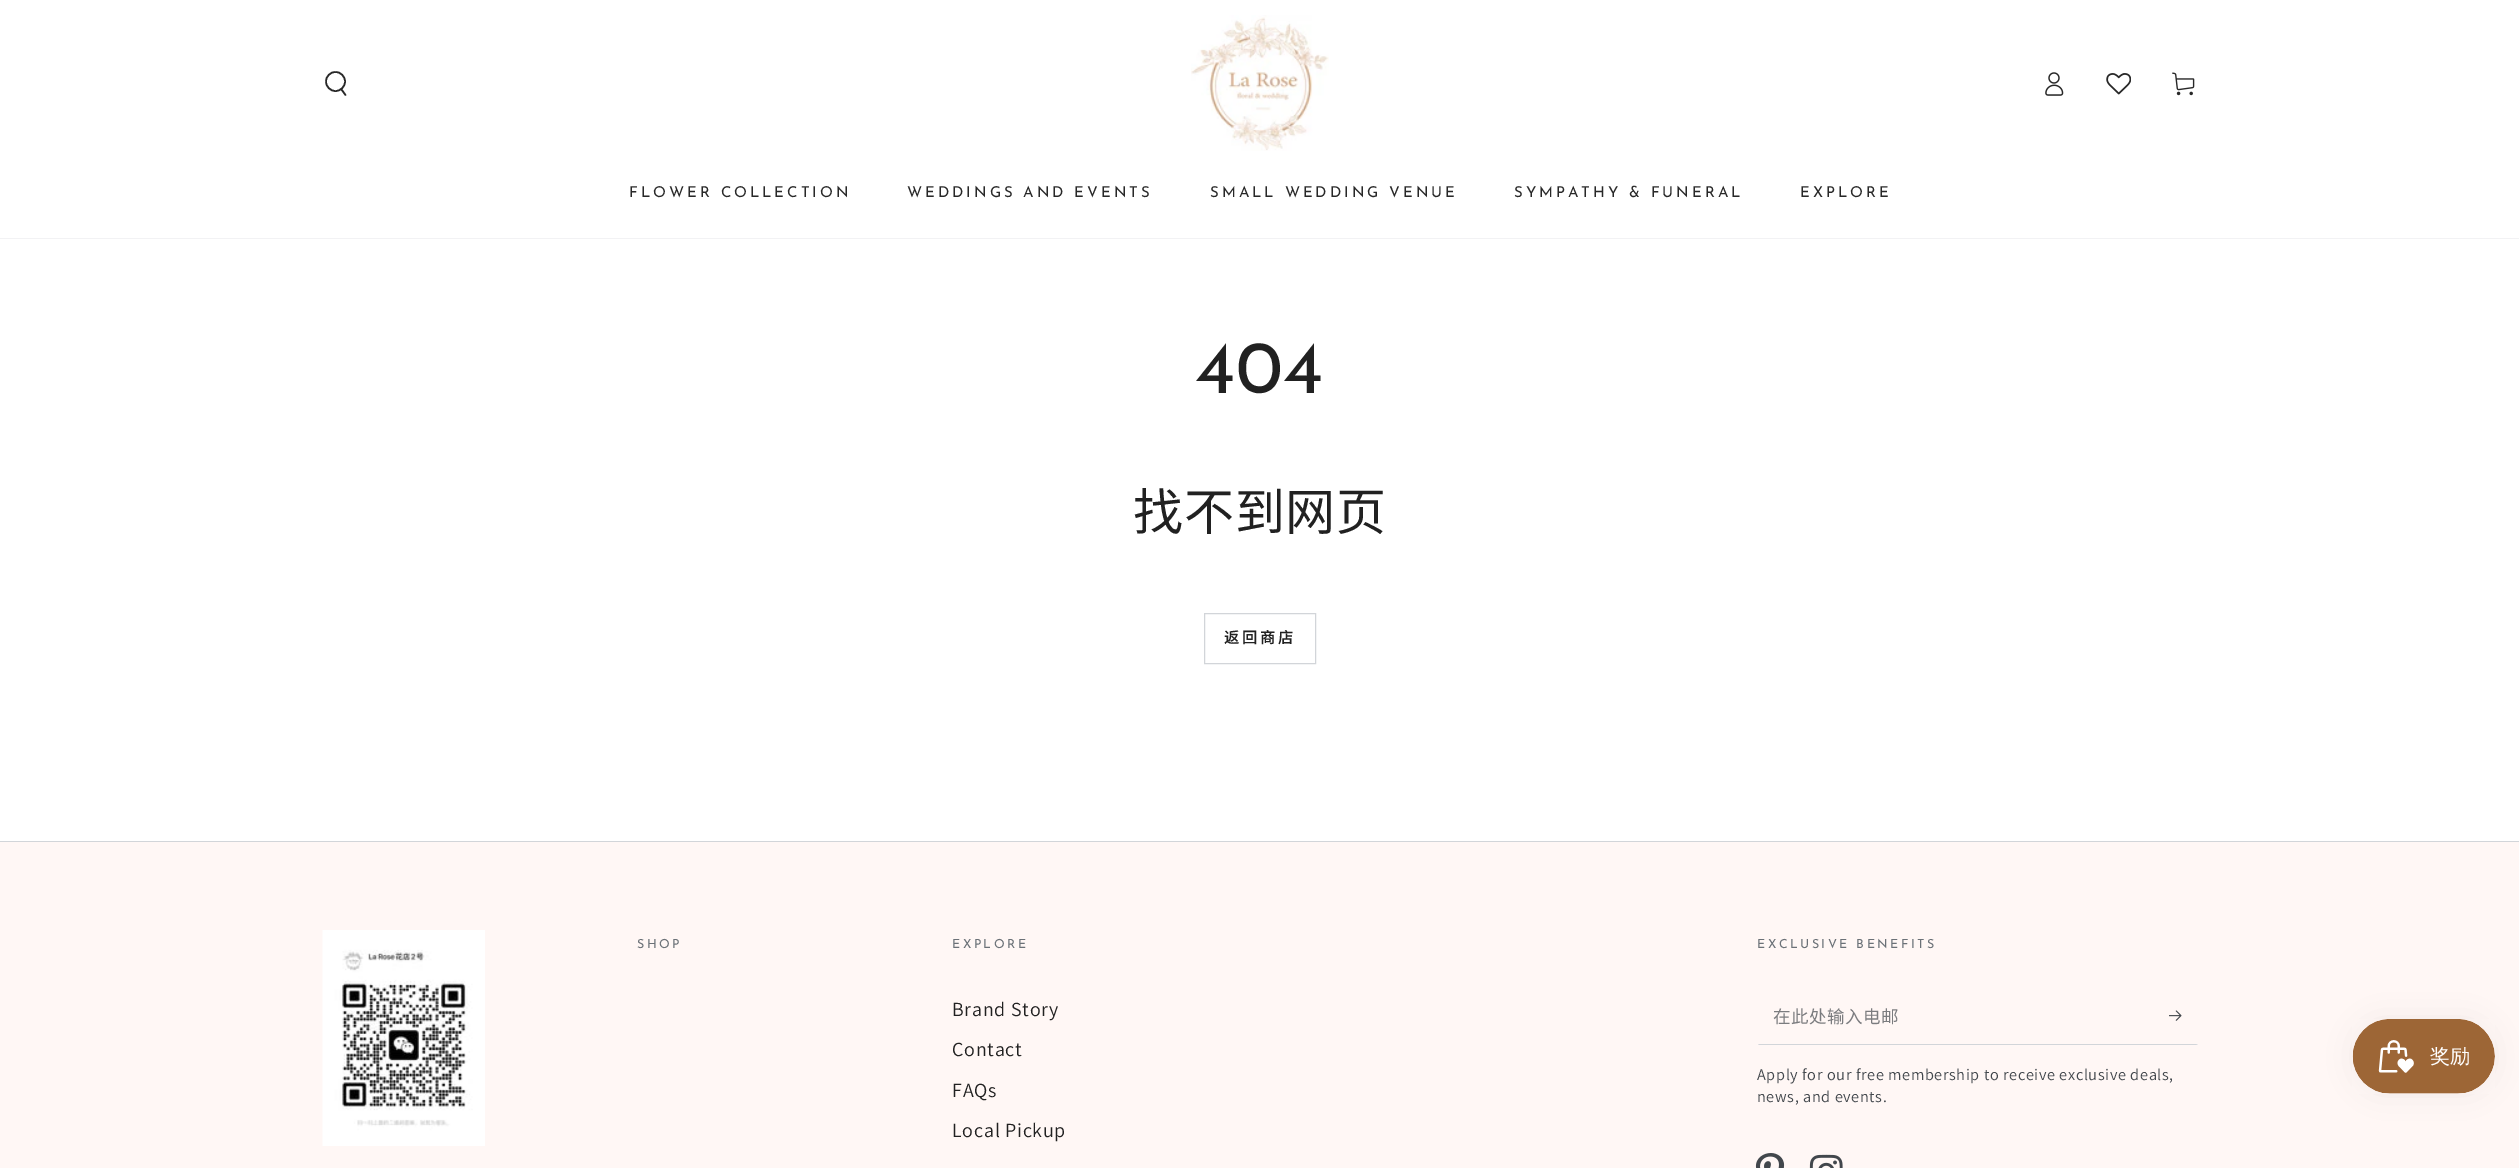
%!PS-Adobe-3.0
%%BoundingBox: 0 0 2519 1168
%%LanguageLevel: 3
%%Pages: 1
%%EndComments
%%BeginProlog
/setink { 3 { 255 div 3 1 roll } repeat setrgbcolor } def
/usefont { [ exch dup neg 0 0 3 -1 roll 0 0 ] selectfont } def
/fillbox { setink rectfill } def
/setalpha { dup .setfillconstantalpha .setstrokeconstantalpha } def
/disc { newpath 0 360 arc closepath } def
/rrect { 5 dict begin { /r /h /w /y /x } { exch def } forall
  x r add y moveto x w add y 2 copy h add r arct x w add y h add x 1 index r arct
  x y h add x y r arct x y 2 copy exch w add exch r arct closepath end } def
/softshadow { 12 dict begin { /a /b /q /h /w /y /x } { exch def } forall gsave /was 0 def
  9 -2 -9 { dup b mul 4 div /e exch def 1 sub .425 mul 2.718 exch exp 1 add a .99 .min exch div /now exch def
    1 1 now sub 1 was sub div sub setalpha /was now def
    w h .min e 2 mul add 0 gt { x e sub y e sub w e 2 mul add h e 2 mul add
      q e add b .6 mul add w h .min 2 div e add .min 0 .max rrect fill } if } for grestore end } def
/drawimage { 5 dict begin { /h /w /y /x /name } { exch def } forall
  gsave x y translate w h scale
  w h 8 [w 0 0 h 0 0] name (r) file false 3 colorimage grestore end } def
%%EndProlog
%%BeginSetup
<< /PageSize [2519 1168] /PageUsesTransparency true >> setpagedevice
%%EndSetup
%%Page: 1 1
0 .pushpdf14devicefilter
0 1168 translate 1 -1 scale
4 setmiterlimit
0 0 2519 1168 255 255 255 fillbox
0 238 2519 1 242 242 244 fillbox
40 40 40 setink
1.6 setlinewidth
335.5 81.5 9.5 disc stroke
1 setlinecap
341.5 89.5 moveto 345.5 95 lineto stroke
(assets/img1.rgb) 1191 15 138 136 drawimage
(assets/img2.rgb) 2045 72 19 24 drawimage
(assets/img3.rgb) 2106 73 25 22 drawimage
(assets/img4.rgb) 2172 72 23 24 drawimage
/JosefinSans-Regular 15 usefont
629 197 moveto 3 0 (FLOWER COLLECTION) ashow
907 197 moveto 3 0 (WEDDINGS AND EVENTS) ashow
1210 197 moveto 3 0 (SMALL WEDDING VENUE) ashow
1514 197 moveto 3 0 (SYMPATHY & FUNERAL) ashow
1800 197 moveto 3 0 (EXPLORE) ashow
/JosefinSans-Regular 75 usefont
33 33 33 setink
1195 393 moveto 0.75 0 (404) ashow
/NotoSansCJKSC-Regular 50 usefont
1133 530 moveto 0.75 0 (找不到网页) ashow
210 213 217 setink
1 setlinewidth
0 setlinecap
1204.5 613.5 111 50 rectstroke
/NotoSansCJKSC-Bold 15 usefont
33 33 33 setink
1224 643 moveto 3 0 (返回商店) ashow
0 842 2519 326 255 247 245 fillbox
0 841 2519 1 210 213 217 fillbox
(assets/img5.rgb) 322 930 163 216 drawimage
/JosefinSans-Regular 12.5 usefont
107 113 119 setink
637 948 moveto 2.5 0 (SHOP) ashow
952 948 moveto 2.5 0 (EXPLORE) ashow
/Assistant-Regular 20 usefont
33 33 33 setink
952 1016 moveto 0.75 0 (Brand Story) ashow
952 1056 moveto 0.75 0 (Contact) ashow
952 1097 moveto 0.75 0 (FAQs) ashow
952 1137 moveto 0.75 0 (Local Pickup) ashow
/JosefinSans-Regular 12.5 usefont
107 113 119 setink
1757 948 moveto 2.5 0 (EXCLUSIVE BENEFITS) ashow
210 213 217 setink
2198 1045 moveto 1758 1045 lineto 1759 1044 lineto 2196 1044 lineto closepath fill
/NotoSansCJKSC-Regular 17.5 usefont
123 124 127 setink
1773 1023 moveto 0.5 0 (在此处输入电邮) ashow
(assets/img6.rgb) 2169 1010 13 11 drawimage
/Assistant-Regular 16.25 usefont
66 71 76 setink
1757 1080 moveto 0.62 0 (Apply for our free membership to receive exclusive deals,) ashow
1757 1102 moveto 0.62 0 (news, and events.) ashow
(assets/img7.rgb) 1755 1153 30 15 drawimage
(assets/img8.rgb) 1809 1154 34 14 drawimage
0 0 0 setink
2353 1019 142 75 37.5 15.5 0.05 softshadow
(assets/img9.rgb) 2352 1019 143 75 drawimage
.poppdf14devicefilter showpage
%%EOF
